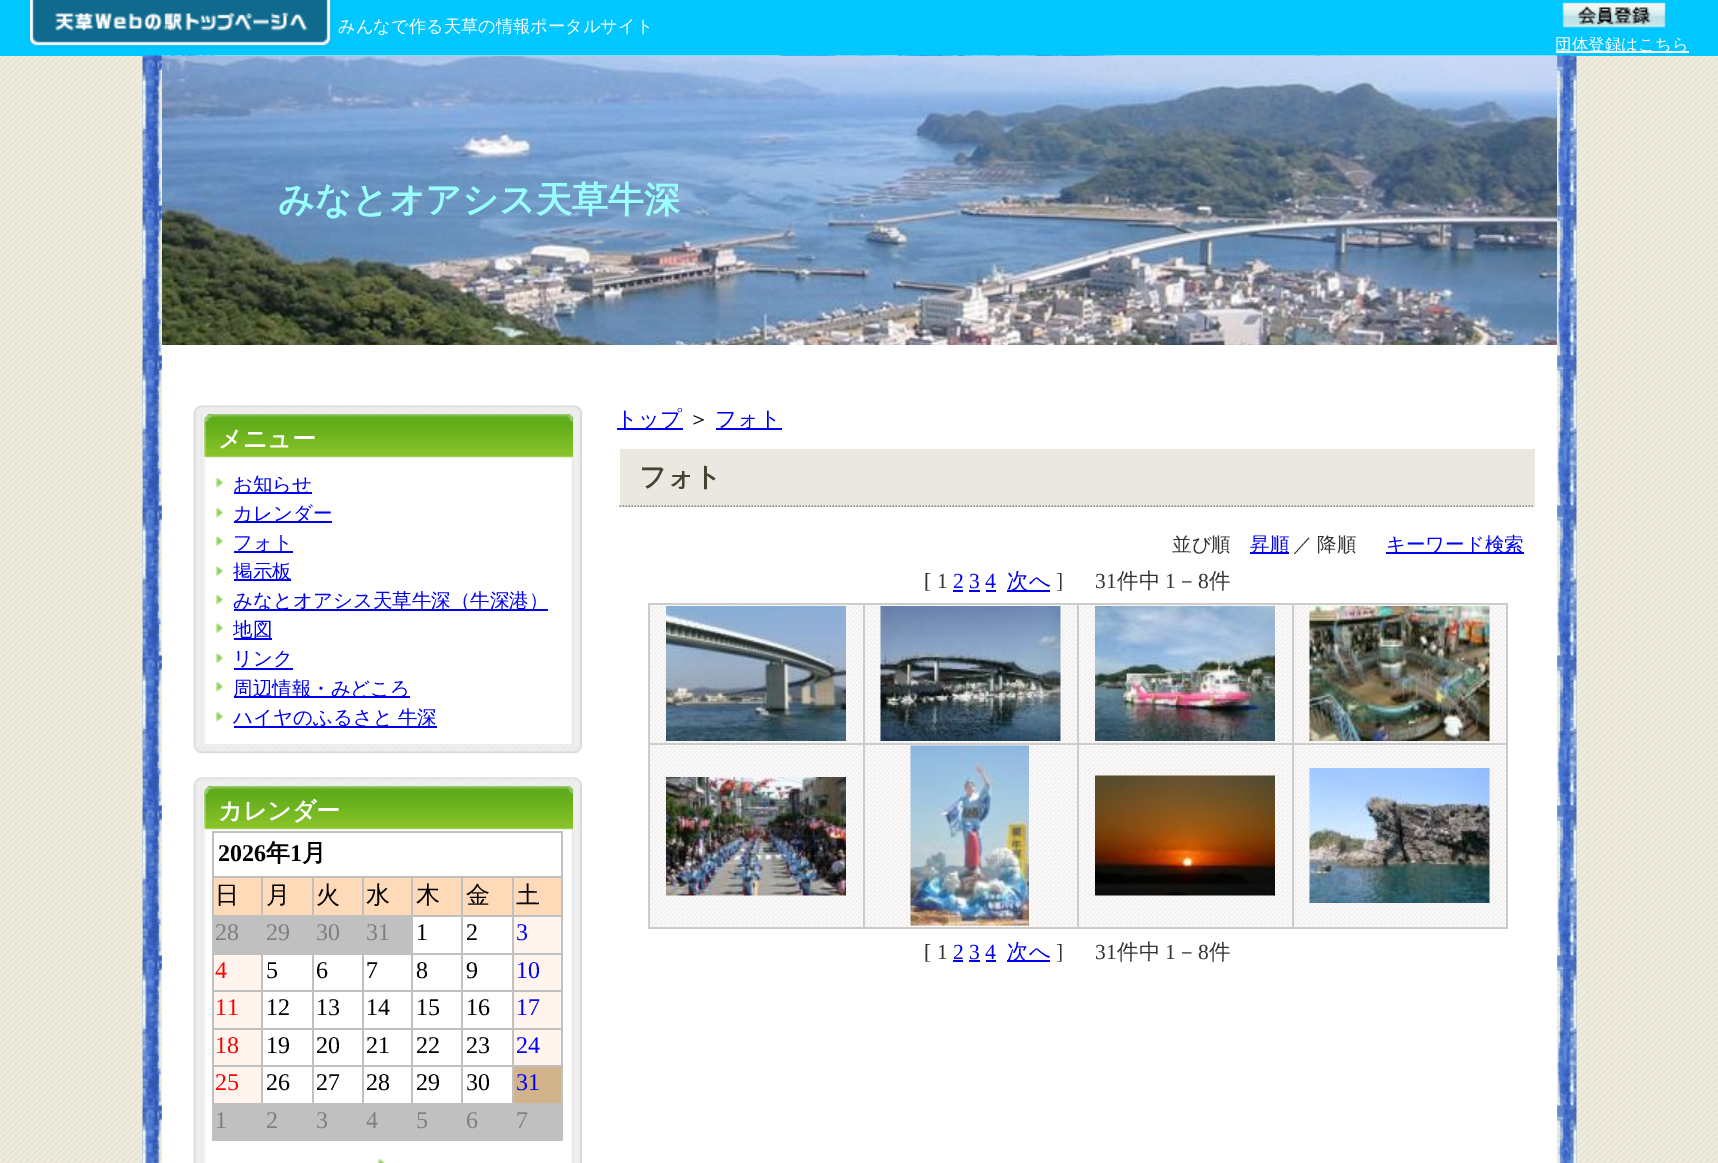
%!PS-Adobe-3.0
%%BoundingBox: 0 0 1718 1163
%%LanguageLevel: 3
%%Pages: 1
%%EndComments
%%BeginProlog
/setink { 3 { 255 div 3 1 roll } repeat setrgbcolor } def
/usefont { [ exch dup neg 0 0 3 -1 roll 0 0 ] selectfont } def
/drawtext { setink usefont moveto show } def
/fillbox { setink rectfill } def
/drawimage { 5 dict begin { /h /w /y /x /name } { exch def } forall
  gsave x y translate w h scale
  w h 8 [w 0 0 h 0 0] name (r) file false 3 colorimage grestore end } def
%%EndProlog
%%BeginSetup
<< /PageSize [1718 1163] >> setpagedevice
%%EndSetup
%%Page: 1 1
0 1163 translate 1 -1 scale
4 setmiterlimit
0 0 1718 1163 255 255 255 fillbox
(assets/img1.rgb) 0 56 1718 1107 drawimage
0 0 1718 56 0 199 255 fillbox
(assets/img2.rgb) 30 0 303 48 drawimage
(みんなで作る天草の情報ポータルサイト) 338 32 /WenQuanYiZenHei-Medium 17.25 255 255 255 drawtext
(assets/img3.rgb) 1562 2 104 26 drawimage
1556 51 133 2 255 255 255 fillbox
(団体登録はこちら) 1555 50 /WenQuanYiZenHei-Medium 16.5 255 255 255 drawtext
(assets/img4.rgb) 142 55 1435 1108 drawimage
(assets/img5.rgb) 162 55 1395 1 drawimage
(assets/img6.rgb) 162 56 1395 289 drawimage
(みなとオアシス天草牛深) 278 212 /WenQuanYiZenHei-Bold 36 153 255 255 drawtext
162 345 1395 818 255 255 255 fillbox
(assets/img7.rgb) 193 405 389 9 drawimage
(assets/img10.rgb) 193 457 389 287 drawimage
(assets/img8.rgb) 193 414 389 44 drawimage
(assets/img9.rgb) 204 414 369 44 drawimage
(メニュー) 218 447 /WenQuanYiZenHei-Bold 24 255 255 255 drawtext
(assets/img11.rgb) 216 477 8 11 drawimage
234 492 78 2 0 0 238 fillbox
(お知らせ) 233 491 /WenQuanYiZenHei-Medium 19.5 0 0 238 drawtext
(assets/img11.rgb) 216 507 8 11 drawimage
234 521 98 2 0 0 238 fillbox
(カレンダー) 233 520 /WenQuanYiZenHei-Medium 19.5 0 0 238 drawtext
(assets/img12.rgb) 216 535 8 11 drawimage
234 551 59 2 0 0 238 fillbox
(フォト) 233 549 /WenQuanYiZenHei-Medium 19.5 0 0 238 drawtext
(assets/img12.rgb) 216 565 8 11 drawimage
234 579 57 2 0 0 238 fillbox
(掲示板) 233 578 /WenQuanYiZenHei-Medium 19.5 0 0 238 drawtext
(assets/img11.rgb) 216 594 8 11 drawimage
234 609 314 2 0 0 238 fillbox
(みなとオアシス天草牛深（牛深港）) 233 607 /WenQuanYiZenHei-Medium 19.5 0 0 238 drawtext
(assets/img12.rgb) 216 622 8 11 drawimage
234 638 38 2 0 0 238 fillbox
(地図) 233 636 /WenQuanYiZenHei-Medium 19.5 0 0 238 drawtext
(assets/img12.rgb) 216 652 8 11 drawimage
(リンク) 233 665 /WenQuanYiZenHei-Medium 19.5 0 0 238 drawtext
234 668 59 2 0 0 238 fillbox
(assets/img11.rgb) 216 681 8 11 drawimage
234 696 176 2 0 0 238 fillbox
(周辺情報・みどころ) 233 695 /WenQuanYiZenHei-Medium 19.5 0 0 238 drawtext
(assets/img11.rgb) 216 711 8 11 drawimage
234 726 203 2 0 0 238 fillbox
233 724 moveto -1 0 32 (ハイヤのふるさと 牛深) widthshow
(assets/img13.rgb) 193 744 389 9 drawimage
(assets/img7.rgb) 193 777 389 9 drawimage
(assets/img14.rgb) 193 829 389 334 drawimage
(assets/img8.rgb) 193 786 389 44 drawimage
(assets/img9.rgb) 204 786 369 44 drawimage
(カレンダー) 218 819 /WenQuanYiZenHei-Bold 24 255 255 255 drawtext
212 831 351 2 192 192 192 fillbox
512 876 51 2 192 192 192 fillbox
512 915 51 2 192 192 192 fillbox
512 953 51 2 192 192 192 fillbox
512 990 51 2 192 192 192 fillbox
512 1028 51 2 192 192 192 fillbox
512 1065 51 2 192 192 192 fillbox
212 1103 351 36 192 192 192 fillbox
561 1065 2 39 192 192 192 fillbox
561 1028 2 39 192 192 192 fillbox
561 990 2 39 192 192 192 fillbox
561 953 2 39 192 192 192 fillbox
561 915 2 39 192 192 192 fillbox
561 876 2 41 192 192 192 fillbox
561 831 2 47 192 192 192 fillbox
512 1065 2 39 192 192 192 fillbox
461 1065 52 2 192 192 192 fillbox
512 1028 2 39 192 192 192 fillbox
461 1028 52 2 192 192 192 fillbox
512 990 2 39 192 192 192 fillbox
461 990 52 2 192 192 192 fillbox
512 953 2 39 192 192 192 fillbox
461 953 52 2 192 192 192 fillbox
512 915 2 39 192 192 192 fillbox
461 915 52 2 192 192 192 fillbox
512 876 2 41 192 192 192 fillbox
461 876 52 2 192 192 192 fillbox
212 915 201 38 192 192 192 fillbox
461 1065 2 39 192 192 192 fillbox
411 1065 51 2 192 192 192 fillbox
461 1028 2 39 192 192 192 fillbox
411 1028 51 2 192 192 192 fillbox
461 990 2 39 192 192 192 fillbox
411 990 51 2 192 192 192 fillbox
461 953 2 39 192 192 192 fillbox
411 953 51 2 192 192 192 fillbox
461 915 2 39 192 192 192 fillbox
411 915 51 2 192 192 192 fillbox
461 876 2 41 192 192 192 fillbox
411 876 51 2 192 192 192 fillbox
411 876 2 41 192 192 192 fillbox
362 876 51 2 192 192 192 fillbox
362 876 2 41 192 192 192 fillbox
312 876 51 2 192 192 192 fillbox
312 876 2 41 192 192 192 fillbox
261 876 53 2 192 192 192 fillbox
261 876 2 41 192 192 192 fillbox
212 876 51 2 192 192 192 fillbox
212 876 2 41 192 192 192 fillbox
212 831 2 47 192 192 192 fillbox
(2026) 218 861 /LiberationSerif-Bold 24 0 0 0 drawtext
(年) 266 861 /WenQuanYiZenHei-Bold 24 0 0 0 drawtext
(1) 290 861 /LiberationSerif-Bold 24 0 0 0 drawtext
(月) 302 861 /WenQuanYiZenHei-Bold 24 0 0 0 drawtext
214 878 47 37 255 218 185 fillbox
(日) 215 903 /WenQuanYiZenHei-Medium 24 0 0 0 drawtext
263 878 49 37 255 218 185 fillbox
(月) 266 903 /WenQuanYiZenHei-Medium 24 0 0 0 drawtext
314 878 48 37 255 218 185 fillbox
(火) 316 903 /WenQuanYiZenHei-Medium 24 0 0 0 drawtext
364 878 47 37 255 218 185 fillbox
(水) 366 903 /WenQuanYiZenHei-Medium 24 0 0 0 drawtext
413 878 48 37 255 218 185 fillbox
(木) 416 903 /WenQuanYiZenHei-Medium 24 0 0 0 drawtext
463 878 49 37 255 218 185 fillbox
(金) 466 903 /WenQuanYiZenHei-Medium 24 0 0 0 drawtext
514 878 47 37 255 218 185 fillbox
(土) 516 903 /WenQuanYiZenHei-Medium 24 0 0 0 drawtext
(28) 215 940 /LiberationSerif-Regular 24 128 128 128 drawtext
(29) 266 940 /LiberationSerif-Regular 24 128 128 128 drawtext
(30) 316 940 /LiberationSerif-Regular 24 128 128 128 drawtext
(31) 366 940 /LiberationSerif-Regular 24 128 128 128 drawtext
(1) 416 940 /LiberationSerif-Regular 24 0 0 0 drawtext
(2) 466 940 /LiberationSerif-Regular 24 0 0 0 drawtext
514 917 47 36 255 245 238 fillbox
(3) 516 940 /LiberationSerif-Regular 24 0 0 255 drawtext
214 955 47 35 255 245 238 fillbox
411 1065 2 39 192 192 192 fillbox
362 1065 51 2 192 192 192 fillbox
411 1028 2 39 192 192 192 fillbox
362 1028 51 2 192 192 192 fillbox
411 990 2 39 192 192 192 fillbox
362 990 51 2 192 192 192 fillbox
411 953 2 39 192 192 192 fillbox
362 953 51 2 192 192 192 fillbox
362 1065 2 39 192 192 192 fillbox
312 1065 51 2 192 192 192 fillbox
362 1028 2 39 192 192 192 fillbox
312 1028 51 2 192 192 192 fillbox
362 990 2 39 192 192 192 fillbox
312 990 51 2 192 192 192 fillbox
362 953 2 39 192 192 192 fillbox
312 953 51 2 192 192 192 fillbox
312 1065 2 39 192 192 192 fillbox
261 1065 53 2 192 192 192 fillbox
312 1028 2 39 192 192 192 fillbox
261 1028 53 2 192 192 192 fillbox
312 990 2 39 192 192 192 fillbox
261 990 53 2 192 192 192 fillbox
312 953 2 39 192 192 192 fillbox
261 953 53 2 192 192 192 fillbox
261 1065 2 39 192 192 192 fillbox
212 1065 51 2 192 192 192 fillbox
261 1028 2 39 192 192 192 fillbox
212 1028 51 2 192 192 192 fillbox
261 990 2 39 192 192 192 fillbox
212 990 51 2 192 192 192 fillbox
261 953 2 39 192 192 192 fillbox
212 953 51 2 192 192 192 fillbox
212 1065 2 39 192 192 192 fillbox
212 1028 2 39 192 192 192 fillbox
212 990 2 39 192 192 192 fillbox
212 953 2 39 192 192 192 fillbox
(4) 215 978 /LiberationSerif-Regular 24 255 0 0 drawtext
(5) 266 978 /LiberationSerif-Regular 24 0 0 0 drawtext
(6) 316 978 /LiberationSerif-Regular 24 0 0 0 drawtext
(7) 366 978 /LiberationSerif-Regular 24 0 0 0 drawtext
(8) 416 978 /LiberationSerif-Regular 24 0 0 0 drawtext
(9) 466 978 /LiberationSerif-Regular 24 0 0 0 drawtext
514 955 47 35 255 245 238 fillbox
(10) 516 978 /LiberationSerif-Regular 24 0 0 255 drawtext
214 992 47 36 255 245 238 fillbox
(11) 215 1015 /LiberationSerif-Regular 24 255 0 0 drawtext
(12) 266 1015 /LiberationSerif-Regular 24 0 0 0 drawtext
(13) 316 1015 /LiberationSerif-Regular 24 0 0 0 drawtext
(14) 366 1015 /LiberationSerif-Regular 24 0 0 0 drawtext
(15) 416 1015 /LiberationSerif-Regular 24 0 0 0 drawtext
(16) 466 1015 /LiberationSerif-Regular 24 0 0 0 drawtext
514 992 47 36 255 245 238 fillbox
(17) 516 1015 /LiberationSerif-Regular 24 0 0 255 drawtext
214 1030 47 35 255 245 238 fillbox
(18) 215 1053 /LiberationSerif-Regular 24 255 0 0 drawtext
(19) 266 1053 /LiberationSerif-Regular 24 0 0 0 drawtext
(20) 316 1053 /LiberationSerif-Regular 24 0 0 0 drawtext
(21) 366 1053 /LiberationSerif-Regular 24 0 0 0 drawtext
(22) 416 1053 /LiberationSerif-Regular 24 0 0 0 drawtext
(23) 466 1053 /LiberationSerif-Regular 24 0 0 0 drawtext
514 1030 47 35 255 245 238 fillbox
(24) 516 1053 /LiberationSerif-Regular 24 0 0 255 drawtext
214 1067 47 36 255 245 238 fillbox
(25) 215 1090 /LiberationSerif-Regular 24 255 0 0 drawtext
(26) 266 1090 /LiberationSerif-Regular 24 0 0 0 drawtext
(27) 316 1090 /LiberationSerif-Regular 24 0 0 0 drawtext
(28) 366 1090 /LiberationSerif-Regular 24 0 0 0 drawtext
(29) 416 1090 /LiberationSerif-Regular 24 0 0 0 drawtext
(30) 466 1090 /LiberationSerif-Regular 24 0 0 0 drawtext
514 1067 47 36 210 180 140 fillbox
(31) 516 1090 /LiberationSerif-Regular 24 0 0 255 drawtext
(1) 215 1128 /LiberationSerif-Regular 24 128 128 128 drawtext
(2) 266 1128 /LiberationSerif-Regular 24 128 128 128 drawtext
(3) 316 1128 /LiberationSerif-Regular 24 128 128 128 drawtext
(4) 366 1128 /LiberationSerif-Regular 24 128 128 128 drawtext
(5) 416 1128 /LiberationSerif-Regular 24 128 128 128 drawtext
(6) 466 1128 /LiberationSerif-Regular 24 128 128 128 drawtext
212 1139 351 2 192 192 192 fillbox
(7) 516 1128 /LiberationSerif-Regular 24 128 128 128 drawtext
(assets/img15.rgb) 378 1158 8 5 drawimage
617 428 66 2 0 0 238 fillbox
(トップ) 616 426 /WenQuanYiZenHei-Medium 21.5 0 0 238 drawtext
(＞) 688 426 /WenQuanYiZenHei-Medium 21.5 0 0 0 drawtext
716 428 66 2 0 0 238 fillbox
(フォト) 715 426 /WenQuanYiZenHei-Medium 21.5 0 0 238 drawtext
620 449 915 58 234 232 225 fillbox
142 142 142 setink
1.5 setlinewidth
[1.5 1.5] 0 setdash
619.5 506 moveto 1534.5 506 lineto stroke
(フォト) 639 486 /WenQuanYiZenHei-Bold 27 68 68 51 drawtext
(並び順) 1172 551 /WenQuanYiZenHei-Medium 19.5 51 51 51 drawtext
1250 552 39 2 0 0 238 fillbox
(昇順) 1250 551 /WenQuanYiZenHei-Medium 19.5 0 0 238 drawtext
51 51 51 setink
1293 551 moveto -1 0 32 (／ 降順) widthshow
1386 552 138 2 0 0 238 fillbox
(キーワード検索) 1386 551 /WenQuanYiZenHei-Medium 19.5 0 0 238 drawtext
([ 1) 924 588 /LiberationSerif-Regular 21.5 51 51 51 drawtext
(2 3 4) 953 588 /LiberationSerif-Regular 21.5 0 0 238 drawtext
953 590 10 2 0 0 238 fillbox
1007 590 43 2 0 0 238 fillbox
(次へ) 1007 588 /WenQuanYiZenHei-Medium 21.5 0 0 238 drawtext
(]      31) 1056 588 /LiberationSerif-Regular 21.5 51 51 51 drawtext
(件中) 1117 588 /WenQuanYiZenHei-Medium 21.5 51 51 51 drawtext
(1) 1165 588 /LiberationSerif-Regular 21.5 51 51 51 drawtext
(－) 1176 588 /WenQuanYiZenHei-Medium 21.5 51 51 51 drawtext
(8) 1198 588 /LiberationSerif-Regular 21.5 51 51 51 drawtext
(件) 1209 588 /WenQuanYiZenHei-Medium 21.5 51 51 51 drawtext
969 590 11 2 0 0 238 fillbox
986 590 10 2 0 0 238 fillbox
(assets/img16.rgb) 650 605 213 138 drawimage
1292 603 216 2 204 204 204 fillbox
(assets/img16.rgb) 1079 605 213 138 drawimage
(assets/img18.rgb) 1291 605 215 138 drawimage
1292 743 216 2 204 204 204 fillbox
(assets/img22.rgb) 1079 745 213 182 drawimage
(assets/img24.rgb) 1291 745 215 182 drawimage
1506 743 2 186 204 204 204 fillbox
1292 927 216 2 204 204 204 fillbox
1292 743 2 186 204 204 204 fillbox
1077 743 216 2 204 204 204 fillbox
1292 603 2 141 204 204 204 fillbox
1077 603 216 2 204 204 204 fillbox
1077 927 216 2 204 204 204 fillbox
1077 743 2 186 204 204 204 fillbox
863 743 216 2 204 204 204 fillbox
1077 603 2 141 204 204 204 fillbox
863 603 216 2 204 204 204 fillbox
(assets/img18.rgb) 862 605 215 138 drawimage
(assets/img22.rgb) 650 745 213 182 drawimage
(assets/img24.rgb) 862 745 215 182 drawimage
863 927 216 2 204 204 204 fillbox
863 743 2 186 204 204 204 fillbox
648 743 216 2 204 204 204 fillbox
863 603 2 141 204 204 204 fillbox
648 603 216 2 204 204 204 fillbox
648 927 216 2 204 204 204 fillbox
648 743 2 186 204 204 204 fillbox
648 603 2 141 204 204 204 fillbox
(assets/img17.rgb) 666 606 180 135 drawimage
(assets/img19.rgb) 880 606 181 135 drawimage
(assets/img20.rgb) 1095 606 180 135 drawimage
1506 603 2 141 204 204 204 fillbox
(assets/img21.rgb) 1309 606 181 135 drawimage
(assets/img23.rgb) 666 777 180 119 drawimage
(assets/img25.rgb) 910 745 119 181 drawimage
(assets/img26.rgb) 1095 775 180 121 drawimage
(assets/img27.rgb) 1309 768 181 135 drawimage
([ 1) 924 959 /LiberationSerif-Regular 21.5 51 51 51 drawtext
(2 3 4) 953 959 /LiberationSerif-Regular 21.5 0 0 238 drawtext
953 960 10 2 0 0 238 fillbox
1007 960 43 2 0 0 238 fillbox
(次へ) 1007 959 /WenQuanYiZenHei-Medium 21.5 0 0 238 drawtext
(]      31) 1056 959 /LiberationSerif-Regular 21.5 51 51 51 drawtext
(件中) 1117 959 /WenQuanYiZenHei-Medium 21.5 51 51 51 drawtext
(1) 1165 959 /LiberationSerif-Regular 21.5 51 51 51 drawtext
(－) 1176 959 /WenQuanYiZenHei-Medium 21.5 51 51 51 drawtext
(8) 1198 959 /LiberationSerif-Regular 21.5 51 51 51 drawtext
(件) 1209 959 /WenQuanYiZenHei-Medium 21.5 51 51 51 drawtext
969 960 11 2 0 0 238 fillbox
986 960 10 2 0 0 238 fillbox
showpage
%%EOF
